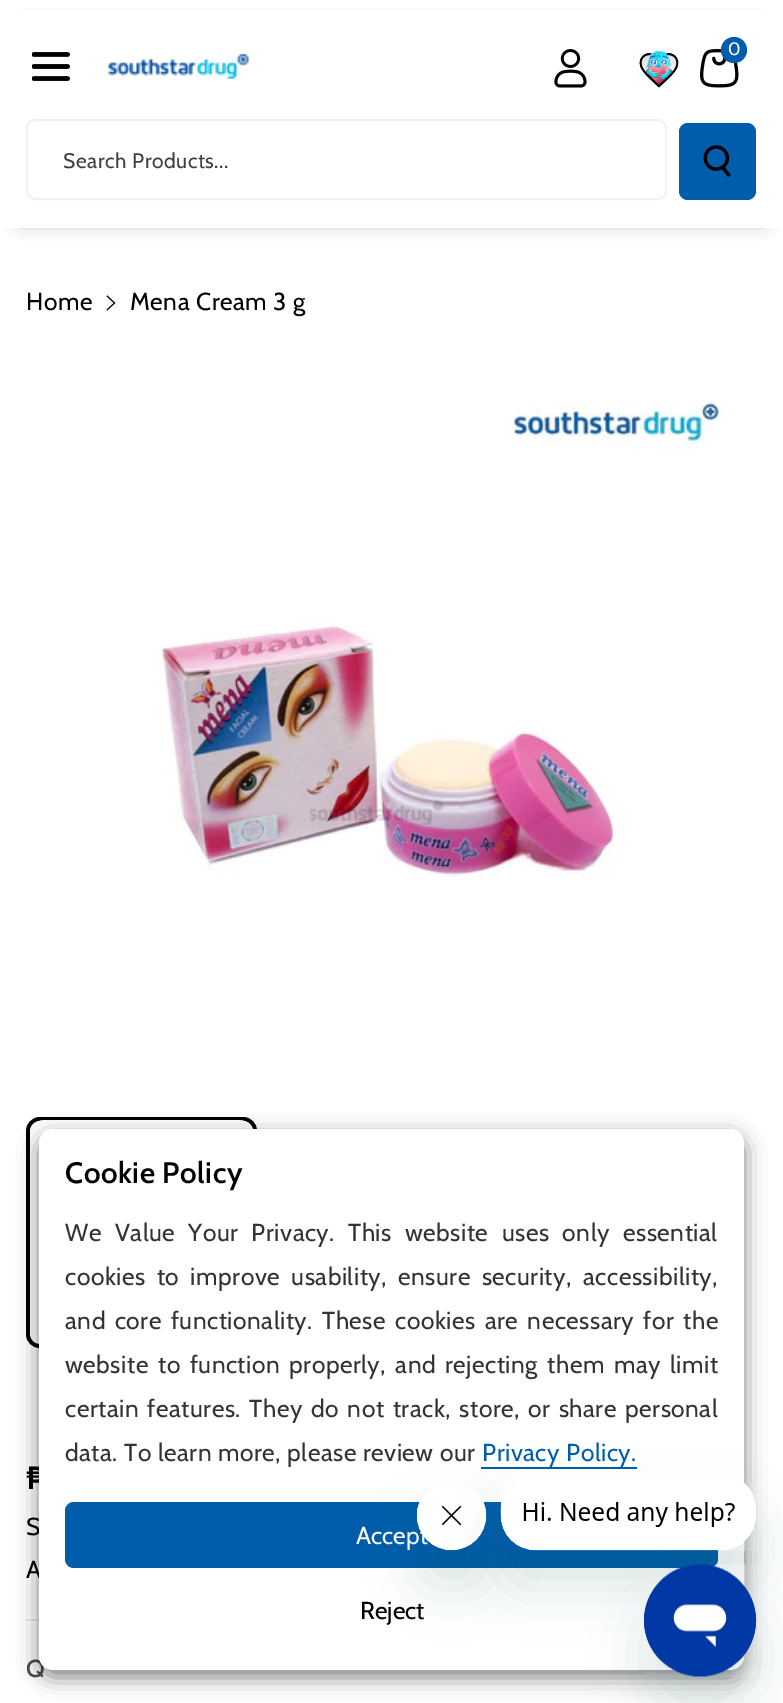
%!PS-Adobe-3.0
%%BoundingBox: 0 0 783 1703
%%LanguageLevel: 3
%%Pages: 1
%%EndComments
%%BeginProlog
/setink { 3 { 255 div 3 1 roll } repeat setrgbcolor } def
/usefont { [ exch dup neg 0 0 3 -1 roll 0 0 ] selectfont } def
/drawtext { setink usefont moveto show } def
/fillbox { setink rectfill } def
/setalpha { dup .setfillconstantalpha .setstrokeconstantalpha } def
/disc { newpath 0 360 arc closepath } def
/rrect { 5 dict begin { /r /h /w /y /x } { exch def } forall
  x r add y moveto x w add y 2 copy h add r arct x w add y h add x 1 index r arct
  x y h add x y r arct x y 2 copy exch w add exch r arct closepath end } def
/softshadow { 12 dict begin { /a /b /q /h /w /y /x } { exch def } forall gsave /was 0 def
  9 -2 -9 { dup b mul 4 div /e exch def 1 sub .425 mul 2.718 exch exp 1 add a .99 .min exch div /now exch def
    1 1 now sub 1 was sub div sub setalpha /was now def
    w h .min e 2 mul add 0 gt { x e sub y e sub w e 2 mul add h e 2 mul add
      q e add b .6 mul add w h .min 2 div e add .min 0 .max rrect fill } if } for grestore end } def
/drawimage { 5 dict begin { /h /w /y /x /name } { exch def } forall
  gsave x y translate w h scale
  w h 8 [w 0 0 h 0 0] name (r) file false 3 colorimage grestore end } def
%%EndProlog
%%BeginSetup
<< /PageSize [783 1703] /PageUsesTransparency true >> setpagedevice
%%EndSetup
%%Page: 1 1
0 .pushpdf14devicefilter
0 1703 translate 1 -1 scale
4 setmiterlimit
0 0 783 1703 255 255 255 fillbox
18 18 18 setink
21 32 742 185 0 10.5 0.6 softshadow
0 10 783 218 255 255 255 fillbox
(assets/img1.rgb) 554 49 33 39 drawimage
(assets/img2.rgb) 639 50 40 38 drawimage
(assets/img3.rgb) 700 49 39 39 drawimage
0 93 171 setink
734 50 13 disc fill
/Cabin-Regular 18 usefont
255 255 255 setink
728 55 moveto 0.53 0 (0) ashow
(assets/img4.rgb) 32 52 38 29 drawimage
(assets/img5.rgb) 108 54 141 25 drawimage
242 242 242 setink
2 setlinewidth
27 120 639 79 8 rrect stroke
/Cabin-Regular 21 usefont
64 64 64 setink
63 168 moveto 0.53 0 (Search Products...) ashow
0 93 171 setink
679 123 77 77 9 rrect fill
(assets/img6.rgb) 703 145 28 32 drawimage
/Cabin-Regular 24.5 usefont
0 0 0 setink
26 310 moveto 0.53 0 (Home) ashow
(assets/img7.rgb) 106 295 10 16 drawimage
130 310 moveto 0.53 0 (Mena Cream 3 g) ashow
(assets/img8.rgb) 159 400 564 477 drawimage
4 setlinewidth
28 1119 227 227 12 rrect stroke
(assets/img9.rgb) 30 1120 223 224 drawimage
26 1619 732 2 235 235 235 fillbox
(₱) 26 1489 /Cabin-Bold 32 0 0 0 drawtext
/Cabin-Regular 24.5 usefont
26 1535 moveto 1 0 (S) ashow
26 1578 moveto 0.53 0 (A) ashow
/Cabin-Medium 24.5 usefont
77 77 77 setink
26 1677 moveto 0.53 0 (Q) ashow
0 0 0 setink
39 1136 705 541 14 10.5 0.5 softshadow
255 255 255 setink
39 1129 705 541 14 rrect fill
/Cabin-SemiBold 29.5 usefont
0 0 0 setink
65 1183 moveto 0.53 0 (Cookie Policy) ashow
/Cabin-Regular 24.5 usefont
51 51 51 setink
65 1241 moveto 7 0 32 0.53 0 (We Value Your Privacy. This website uses only essential) awidthshow
65 1285 moveto 5 0 32 0.53 0 (cookies to improve usability, ensure security, accessibility,) awidthshow
65 1329 moveto 3 0 32 0.53 0 (and core functionality. These cookies are necessary for the) awidthshow
65 1373 moveto 3 0 32 0.53 0 (website to function properly, and rejecting them may limit) awidthshow
65 1417 moveto 2.25 0 32 0.53 0 (certain features. They do not track, store, or share personal) awidthshow
65 1461 moveto 0.53 0 (data. To learn more, please review our) ashow
0 93 171 setink
482 1461 moveto 0.53 0 (Privacy Policy.) ashow
481 1467 156 2 0 93 171 fillbox
65 1502 653 66 9 rrect fill
(Accept) 356 1544 /Cabin-Regular 24.5 255 255 255 drawtext
(Reject) 360 1619 /Cabin-Regular 24.5 0 0 0 drawtext
gsave
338 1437 moveto 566 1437 lineto 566 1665 lineto 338 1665 lineto closepath 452 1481 moveto 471.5 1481 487 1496.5 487 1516 curveto 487 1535.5 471.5 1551 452 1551 curveto 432.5 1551 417 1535.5 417 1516 curveto 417 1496.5 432.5 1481 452 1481 curveto closepath eoclip newpath
23 73 77 setink
417 1516 70 70 35 26 0.15 softshadow
grestore
(assets/img11.rgb) 416 1502 71 49 drawimage
gsave
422 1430 moveto 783 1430 lineto 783 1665 lineto 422 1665 lineto closepath 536 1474 moveto 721 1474 lineto 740.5 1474 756 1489.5 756 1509 curveto 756 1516 lineto 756 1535.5 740.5 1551 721 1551 curveto 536 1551 lineto 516.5 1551 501 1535.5 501 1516 curveto 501 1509 lineto 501 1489.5 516.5 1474 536 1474 curveto closepath eoclip newpath
23 73 77 setink
501 1509 255 77 35 26 0.15 softshadow
grestore
(assets/img10.rgb) 500 1483 256 68 drawimage
23 73 77 setink
644 1600 112 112 56 26 0.15 softshadow
(assets/img12.rgb) 644 1564 112 113 drawimage
.poppdf14devicefilter showpage
%%EOF
